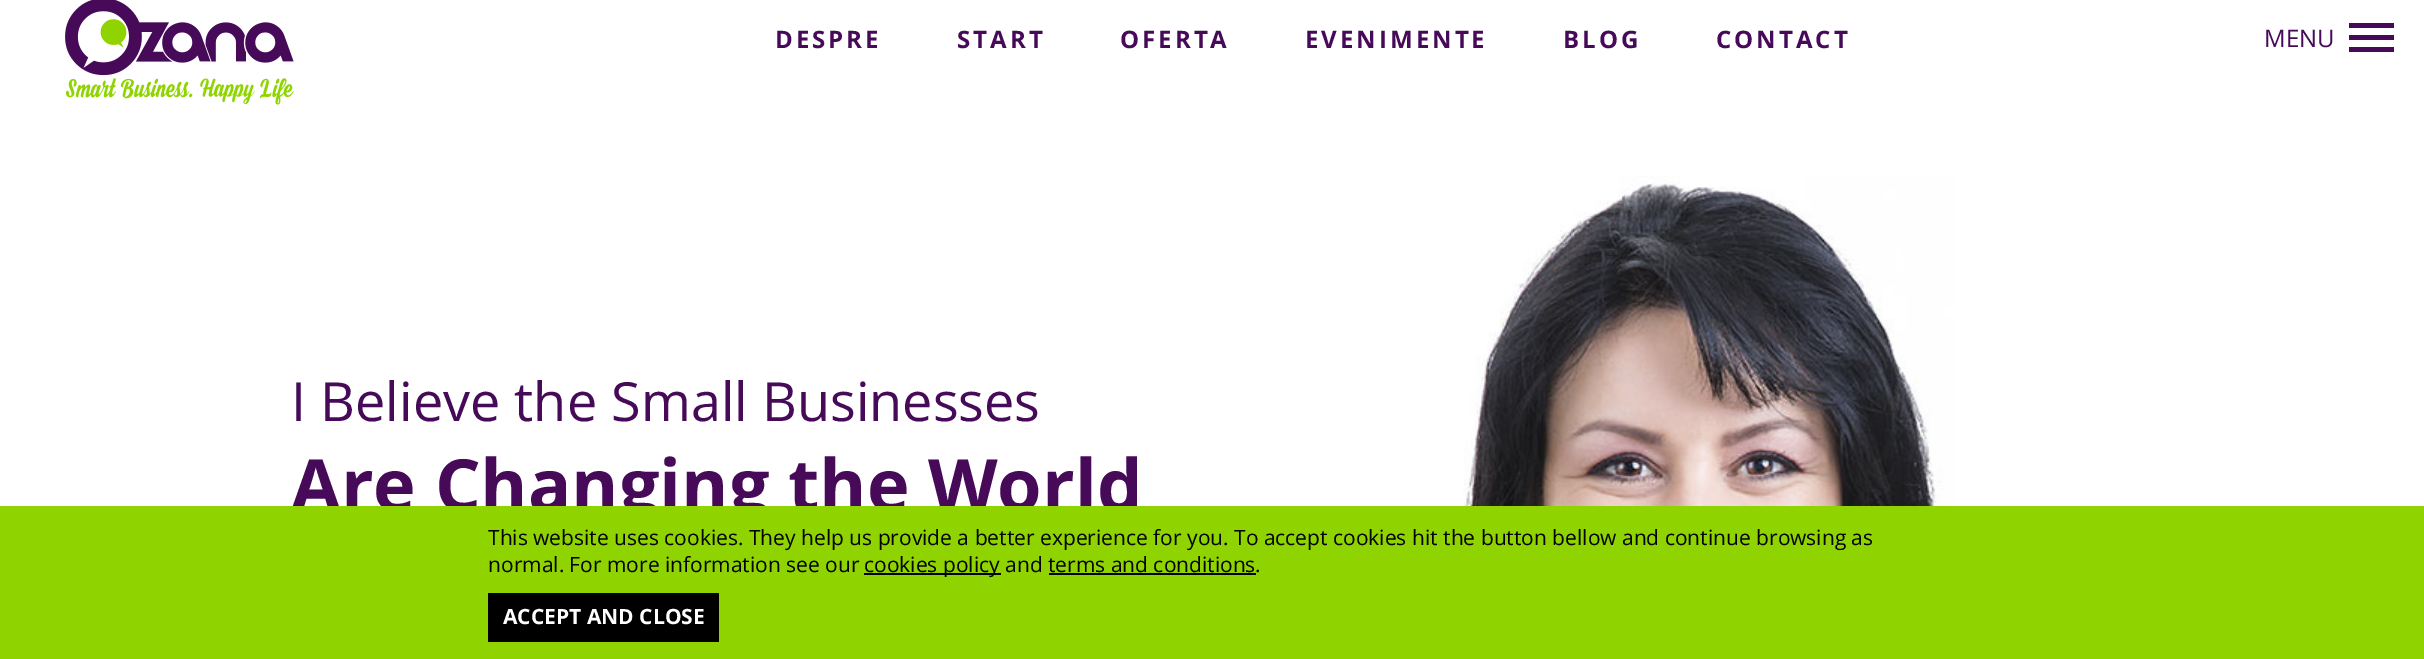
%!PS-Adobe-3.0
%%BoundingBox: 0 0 2424 659
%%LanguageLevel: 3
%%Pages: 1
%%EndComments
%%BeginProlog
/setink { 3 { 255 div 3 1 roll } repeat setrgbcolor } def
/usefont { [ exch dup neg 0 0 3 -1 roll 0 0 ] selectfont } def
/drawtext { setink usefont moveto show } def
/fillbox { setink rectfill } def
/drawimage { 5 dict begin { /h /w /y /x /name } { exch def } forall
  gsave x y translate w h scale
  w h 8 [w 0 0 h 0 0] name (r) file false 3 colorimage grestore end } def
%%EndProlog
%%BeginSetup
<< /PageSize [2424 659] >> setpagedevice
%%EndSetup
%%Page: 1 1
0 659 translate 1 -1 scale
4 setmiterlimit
0 0 2424 659 255 255 255 fillbox
(assets/img1.rgb) 65 0 229 105 drawimage
/OpenSans-Bold 24 usefont
71 10 89 setink
775 48 moveto 3 0 (DESPRE) ashow
957 48 moveto 3 0 (START) ashow
1120 48 moveto 3 0 (OFERTA) ashow
1305 48 moveto 3 0 (EVENIMENTE) ashow
1563 48 moveto 3 0 (BLOG) ashow
1716 48 moveto 3 0 (CONTACT) ashow
(MENU) 2264 47 /OpenSans-Regular 24 71 10 89 drawtext
2349 23 45 5 71 10 89 fillbox
2349 35 45 5 71 10 89 fillbox
2349 47 45 5 71 10 89 fillbox
(assets/img2.rgb) 1452 176 502 330 drawimage
(I Believe the Small Businesses) 291 421 /OpenSans-Regular 54 71 10 89 drawtext
(Are Changing the World) 291 511 /OpenSans-Bold 72 71 10 89 drawtext
0 506 2424 153 143 212 0 fillbox
(This website uses cookies. They help us provide a better experience for you. To accept cookies hit the button bellow and continue browsing as) 488 545 /OpenSans-Regular 21 0 0 0 drawtext
(normal. For more information see our) 488 572 /OpenSans-Regular 21 0 0 0 drawtext
864 573 137 2 0 0 0 fillbox
(cookies policy and terms and conditions.) 864 572 /OpenSans-Regular 21 0 0 0 drawtext
1049 573 207 2 0 0 0 fillbox
488 593 231 49 0 0 0 fillbox
(ACCEPT AND CLOSE) 503 624 /OpenSans-Bold 21 255 255 255 drawtext
showpage
%%EOF
